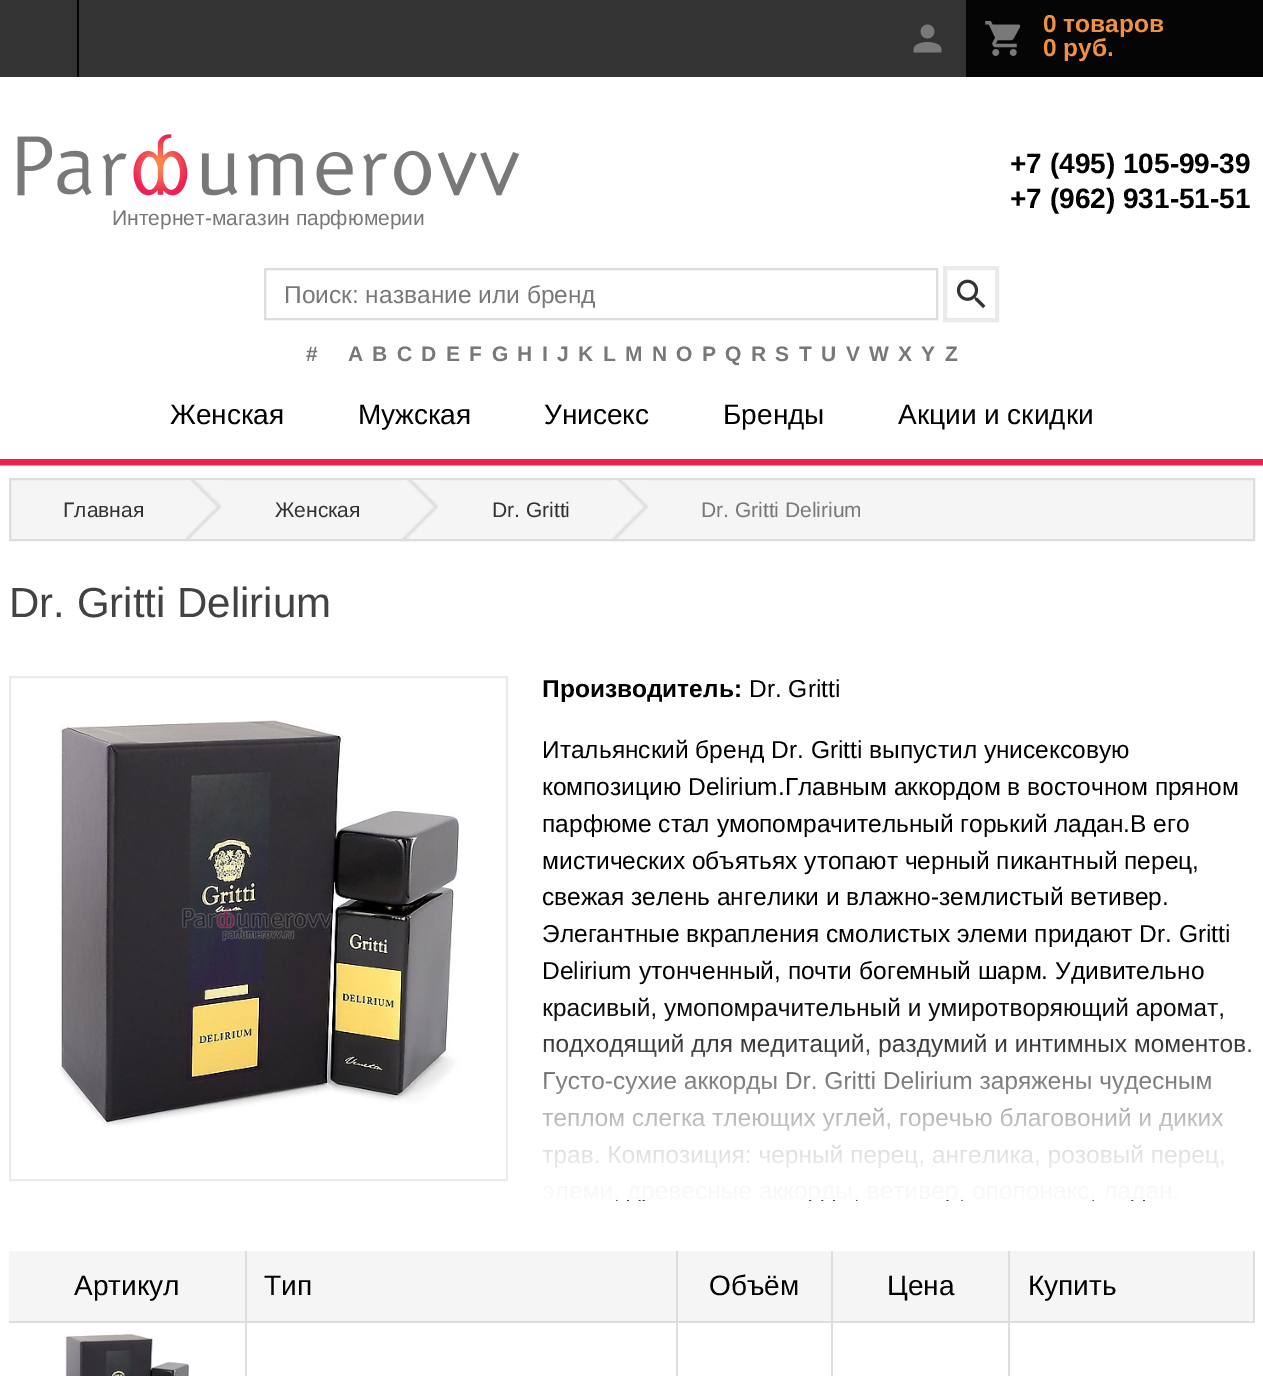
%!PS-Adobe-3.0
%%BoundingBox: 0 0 1263 1376
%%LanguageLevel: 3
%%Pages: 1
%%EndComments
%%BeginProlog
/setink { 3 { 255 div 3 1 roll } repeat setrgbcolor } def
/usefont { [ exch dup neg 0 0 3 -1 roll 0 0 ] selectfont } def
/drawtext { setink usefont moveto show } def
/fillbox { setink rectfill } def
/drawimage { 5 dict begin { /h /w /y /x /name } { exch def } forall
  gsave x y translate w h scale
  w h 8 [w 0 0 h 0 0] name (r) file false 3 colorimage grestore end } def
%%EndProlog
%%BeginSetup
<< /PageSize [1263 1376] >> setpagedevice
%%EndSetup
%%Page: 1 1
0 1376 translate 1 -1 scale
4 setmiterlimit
0 0 1263 1376 255 255 255 fillbox
0 0 966 77 51 51 51 fillbox
77 0 2 77 5 5 5 fillbox
(assets/img1.rgb) 913 24 29 29 drawimage
966 0 297 77 5 5 5 fillbox
(assets/img2.rgb) 985 21 36 35 drawimage
(0 товаров) 1043 32 /LiberationSans-Bold 24.5 240 144 66 drawtext
(0 руб.) 1043 56 /LiberationSans-Bold 24.5 240 144 66 drawtext
0 459 1263 6 237 32 80 fillbox
(+7 \(495\) 105-99-39) 1010 173 /LiberationSans-Bold 28 0 0 0 drawtext
(+7 \(962\) 931-51-51) 1010 208 /LiberationSans-Bold 28 0 0 0 drawtext
(assets/img3.rgb) 17 134 502 62 drawimage
(Интернет-магазин парфюмерии) 112 225 /LiberationSans-Regular 21 120 120 120 drawtext
221 221 221 setink
2 setlinewidth
265 269 672 50 rectstroke
(Поиск: название или бренд) 284 303 /LiberationSans-Regular 24.5 120 120 120 drawtext
(assets/img4.rgb) 956 279 30 30 drawimage
234 234 234 setink
4 setlinewidth
945 268 52 52 rectstroke
(#) 306 361 /LiberationSans-Bold 21 120 120 120 drawtext
(A) 348 361 /LiberationSans-Bold 21 120 120 120 drawtext
(B) 372 361 /LiberationSans-Bold 21 120 120 120 drawtext
(C) 397 361 /LiberationSans-Bold 21 120 120 120 drawtext
(D) 421 361 /LiberationSans-Bold 21 120 120 120 drawtext
(E) 446 361 /LiberationSans-Bold 21 120 120 120 drawtext
(F) 469 361 /LiberationSans-Bold 21 120 120 120 drawtext
(G) 492 361 /LiberationSans-Bold 21 120 120 120 drawtext
(H) 517 361 /LiberationSans-Bold 21 120 120 120 drawtext
(I) 542 361 /LiberationSans-Bold 21 120 120 120 drawtext
(J) 557 361 /LiberationSans-Bold 21 120 120 120 drawtext
(K) 578 361 /LiberationSans-Bold 21 120 120 120 drawtext
(L) 603 361 /LiberationSans-Bold 21 120 120 120 drawtext
(M) 625 361 /LiberationSans-Bold 21 120 120 120 drawtext
(N) 652 361 /LiberationSans-Bold 21 120 120 120 drawtext
(O) 676 361 /LiberationSans-Bold 21 120 120 120 drawtext
(P) 702 361 /LiberationSans-Bold 21 120 120 120 drawtext
(Q) 725 361 /LiberationSans-Bold 21 120 120 120 drawtext
(R) 751 361 /LiberationSans-Bold 21 120 120 120 drawtext
(S) 775 361 /LiberationSans-Bold 21 120 120 120 drawtext
(T) 799 361 /LiberationSans-Bold 21 120 120 120 drawtext
(U) 821 361 /LiberationSans-Bold 21 120 120 120 drawtext
(V) 846 361 /LiberationSans-Bold 21 120 120 120 drawtext
(W) 869 361 /LiberationSans-Bold 21 120 120 120 drawtext
(X) 898 361 /LiberationSans-Bold 21 120 120 120 drawtext
(Y) 921 361 /LiberationSans-Bold 21 120 120 120 drawtext
(Z) 945 361 /LiberationSans-Bold 21 120 120 120 drawtext
(Женская) 170 424 /LiberationSans-Regular 28 0 0 0 drawtext
(Мужская) 358 424 /LiberationSans-Regular 28 0 0 0 drawtext
(Унисекс) 544 424 /LiberationSans-Regular 28 0 0 0 drawtext
(Бренды) 723 424 /LiberationSans-Regular 28 0 0 0 drawtext
(Акции и скидки) 898 424 /LiberationSans-Regular 28 0 0 0 drawtext
0 465 1263 1 246 144 168 fillbox
245 245 245 setink
10 479 moveto 1254 479 lineto 1254 540 lineto 10 540 lineto closepath gsave fill grestore
221 221 221 setink
2 setlinewidth
stroke
(assets/img5.rgb) 185 480 37 59 drawimage
(Главная) 63 517 /LiberationSans-Regular 21 51 51 51 drawtext
(assets/img5.rgb) 402 480 37 59 drawimage
(Женская) 275 517 /LiberationSans-Regular 21 51 51 51 drawtext
(assets/img5.rgb) 612 480 37 59 drawimage
(Dr. Gritti) 492 517 /LiberationSans-Regular 21 51 51 51 drawtext
(Dr. Gritti Delirium) 701 517 /LiberationSans-Regular 21 120 120 120 drawtext
(Dr. Gritti Delirium) 9 617 /LiberationSans-Regular 42 66 66 66 drawtext
234 234 234 setink
10 677 497 503 rectstroke
(assets/img6.rgb) 59 720 401 407 drawimage
(Производитель:) 542 697 /LiberationSans-Bold 24.5 0 0 0 drawtext
(Dr. Gritti) 749 697 /LiberationSans-Regular 24.5 0 0 0 drawtext
(Итальянский бренд Dr. Gritti выпустил унисексовую) 542 758 /LiberationSans-Regular 24.5 0 0 0 drawtext
(композицию Delirium.Главным аккордом в восточном пряном) 542 795 /LiberationSans-Regular 24.5 0 0 0 drawtext
(парфюме стал умопомрачительный горький ладан.В его) 542 832 /LiberationSans-Regular 24.5 0 0 0 drawtext
(мистических объятьях утопают черный пикантный перец,) 542 869 /LiberationSans-Regular 24.5 0 0 0 drawtext
(свежая зелень ангелики и влажно-землистый ветивер.) 542 905 /LiberationSans-Regular 24.5 0 0 0 drawtext
(Элегантные вкрапления смолистых элеми придают Dr. Gritti) 542 942 /LiberationSans-Regular 24.5 0 0 0 drawtext
(Delirium утонченный, почти богемный шарм. Удивительно) 542 979 /LiberationSans-Regular 24.5 0 0 0 drawtext
(красивый, умопомрачительный и умиротворяющий аромат,) 542 1016 /LiberationSans-Regular 24.5 0 0 0 drawtext
(подходящий для медитаций, раздумий и интимных моментов.) 542 1052 /LiberationSans-Regular 24.5 0 0 0 drawtext
(Густо-сухие аккорды Dr. Gritti Delirium заряжены чудесным) 542 1089 /LiberationSans-Regular 24.5 0 0 0 drawtext
(assets/img7.rgb) 507 998 744 203 drawimage
9 1321 1246 2 221 221 221 fillbox
245 1251 2 125 221 221 221 fillbox
(assets/img8.rgb) 65 1334 125 42 drawimage
676 1251 2 125 221 221 221 fillbox
831 1251 2 125 221 221 221 fillbox
1008 1251 2 125 221 221 221 fillbox
9 1251 236 70 245 245 245 fillbox
(Артикул) 74 1295 /LiberationSans-Regular 28 0 0 0 drawtext
247 1251 429 70 245 245 245 fillbox
(Тип) 264 1295 /LiberationSans-Regular 28 0 0 0 drawtext
678 1251 153 70 245 245 245 fillbox
(Объём) 709 1295 /LiberationSans-Regular 28 0 0 0 drawtext
833 1251 175 70 245 245 245 fillbox
(Цена) 887 1295 /LiberationSans-Regular 28 0 0 0 drawtext
1010 1251 243 70 245 245 245 fillbox
1253 1251 2 72 221 221 221 fillbox
(Купить) 1028 1295 /LiberationSans-Regular 28 0 0 0 drawtext
showpage
%%EOF
